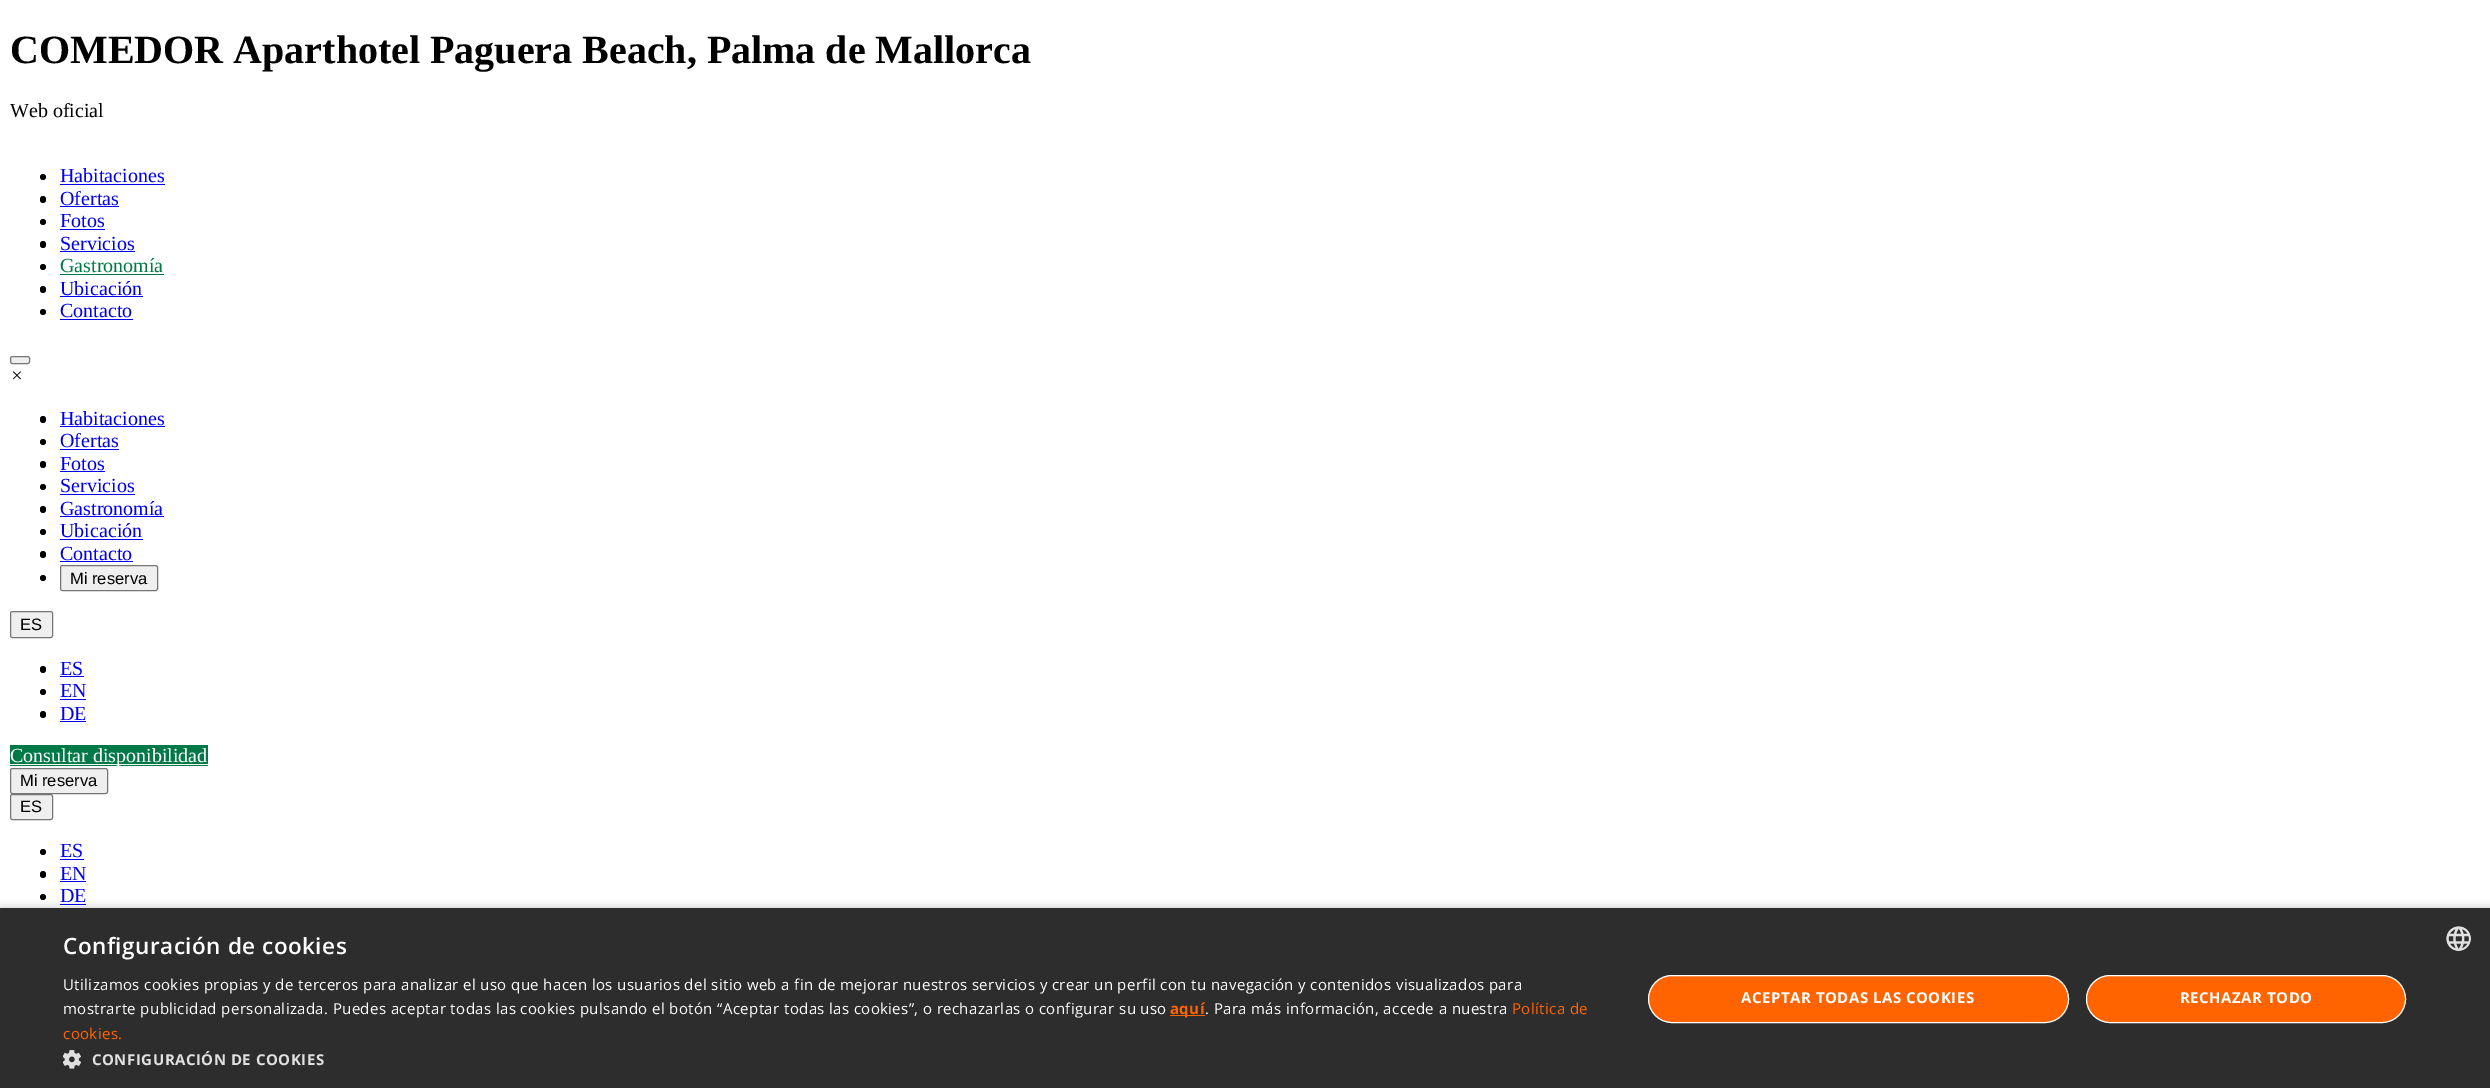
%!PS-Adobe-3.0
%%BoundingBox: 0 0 2490 1088
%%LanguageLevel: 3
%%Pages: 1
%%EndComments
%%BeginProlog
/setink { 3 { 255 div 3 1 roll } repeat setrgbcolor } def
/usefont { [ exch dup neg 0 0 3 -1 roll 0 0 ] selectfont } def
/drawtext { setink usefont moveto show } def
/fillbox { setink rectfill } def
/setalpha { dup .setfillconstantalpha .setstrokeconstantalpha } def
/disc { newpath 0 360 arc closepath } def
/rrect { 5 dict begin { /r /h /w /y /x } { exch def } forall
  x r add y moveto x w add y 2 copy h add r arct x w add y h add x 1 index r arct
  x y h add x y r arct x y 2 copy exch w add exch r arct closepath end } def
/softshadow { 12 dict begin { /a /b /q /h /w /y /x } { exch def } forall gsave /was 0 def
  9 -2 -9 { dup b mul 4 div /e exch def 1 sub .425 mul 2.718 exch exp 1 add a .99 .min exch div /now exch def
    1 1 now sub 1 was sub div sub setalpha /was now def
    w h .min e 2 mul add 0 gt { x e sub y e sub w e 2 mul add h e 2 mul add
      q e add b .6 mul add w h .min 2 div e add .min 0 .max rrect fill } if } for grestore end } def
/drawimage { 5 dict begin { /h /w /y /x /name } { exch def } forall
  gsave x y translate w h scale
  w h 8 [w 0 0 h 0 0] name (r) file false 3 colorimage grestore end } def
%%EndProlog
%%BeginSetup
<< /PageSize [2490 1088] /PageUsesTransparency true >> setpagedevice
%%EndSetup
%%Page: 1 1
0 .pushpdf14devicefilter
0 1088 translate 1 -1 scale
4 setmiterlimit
0 0 2490 1088 255 255 255 fillbox
(COMEDOR Aparthotel Paguera Beach, Palma de Mallorca) 10 63 /LiberationSerif-Bold 40 0 0 0 drawtext
(Web oficial) 10 117 /LiberationSerif-Regular 20 0 0 0 drawtext
43 177 3 disc fill
(Habitaciones) 60 182 /LiberationSerif-Regular 20 0 0 238 drawtext
60 184 105 1 0 0 238 fillbox
0 0 0 setink
40 196 6 7 3 rrect fill
(Ofertas) 60 205 /LiberationSerif-Regular 20 0 0 238 drawtext
60 206 59 1 0 0 238 fillbox
0 0 0 setink
43 222 3 disc fill
(Fotos) 60 227 /LiberationSerif-Regular 20 0 0 238 drawtext
60 229 45 1 0 0 238 fillbox
0 0 0 setink
40 241 6 7 3 rrect fill
(Servicios) 60 250 /LiberationSerif-Regular 20 0 0 238 drawtext
60 251 75 1 0 0 238 fillbox
0 0 0 setink
43 267 3 disc fill
(Gastronomía) 60 272 /LiberationSerif-Regular 20 0 121 70 drawtext
60 274 104 1 0 121 70 fillbox
0 0 0 setink
40 286 6 7 3 rrect fill
(Ubicación) 60 295 /LiberationSerif-Regular 20 0 0 238 drawtext
60 296 83 1 0 0 238 fillbox
0 0 0 setink
43 312 3 disc fill
(Contacto) 60 317 /LiberationSerif-Regular 20 0 0 238 drawtext
60 319 73 1 0 0 238 fillbox
239 239 239 setink
10.5 356.5 19 7 2 rrect gsave fill grestore
118 118 118 setink
stroke
(×) 10 382 /LiberationSerif-Italic 20 0 0 0 drawtext
40 416 6 7 3 rrect fill
(Habitaciones) 60 425 /LiberationSerif-Regular 20 0 0 238 drawtext
60 426 105 1 0 0 238 fillbox
0 0 0 setink
43 442 3 disc fill
(Ofertas) 60 447 /LiberationSerif-Regular 20 0 0 238 drawtext
60 449 59 1 0 0 238 fillbox
0 0 0 setink
40 461 6 7 3 rrect fill
(Fotos) 60 470 /LiberationSerif-Regular 20 0 0 238 drawtext
60 471 45 1 0 0 238 fillbox
0 0 0 setink
43 487 3 disc fill
(Servicios) 60 492 /LiberationSerif-Regular 20 0 0 238 drawtext
60 494 75 1 0 0 238 fillbox
0 0 0 setink
40 506 6 7 3 rrect fill
(Gastronomía) 60 515 /LiberationSerif-Regular 20 0 0 238 drawtext
60 516 104 1 0 0 238 fillbox
0 0 0 setink
43 532 3 disc fill
(Ubicación) 60 537 /LiberationSerif-Regular 20 0 0 238 drawtext
60 539 83 1 0 0 238 fillbox
0 0 0 setink
40 551 6 7 3 rrect fill
(Contacto) 60 560 /LiberationSerif-Regular 20 0 0 238 drawtext
60 561 73 1 0 0 238 fillbox
0 0 0 setink
43 578 3 disc fill
239 239 239 setink
60.5 565.5 97 25 2 rrect gsave fill grestore
118 118 118 setink
stroke
(Mi reserva) 70 584 /LiberationSans-Regular 16.5 0 0 0 drawtext
239 239 239 setink
10.5 611.5 42 26 2 rrect gsave fill grestore
118 118 118 setink
stroke
(ES) 20 630 /LiberationSans-Regular 16.5 0 0 0 drawtext
40 666 6 7 3 rrect fill
(ES) 60 675 /LiberationSerif-Regular 20 0 0 238 drawtext
60 676 24 1 0 0 238 fillbox
0 0 0 setink
43 692 3 disc fill
(EN) 60 697 /LiberationSerif-Regular 20 0 0 238 drawtext
60 699 26 1 0 0 238 fillbox
0 0 0 setink
40 711 6 7 3 rrect fill
(DE) 60 720 /LiberationSerif-Regular 20 0 0 238 drawtext
60 721 26 1 0 0 238 fillbox
10 745 198 21 0 121 70 fillbox
10 764 198 1 255 255 255 fillbox
(Consultar disponibilidad) 10 762 /LiberationSerif-Regular 20 255 255 255 drawtext
239 239 239 setink
10.5 768.5 97 25 2 rrect gsave fill grestore
118 118 118 setink
stroke
(Mi reserva) 20 786 /LiberationSans-Regular 16.5 0 0 0 drawtext
239 239 239 setink
10.5 794.5 42 25 2 rrect gsave fill grestore
118 118 118 setink
stroke
(ES) 20 812 /LiberationSans-Regular 16.5 0 0 0 drawtext
43 852 3 disc fill
(ES) 60 857 /LiberationSerif-Regular 20 0 0 238 drawtext
60 859 24 1 0 0 238 fillbox
0 0 0 setink
40 871 6 7 3 rrect fill
(EN) 60 880 /LiberationSerif-Regular 20 0 0 238 drawtext
60 881 26 1 0 0 238 fillbox
0 0 0 setink
43 897 3 disc fill
(DE) 60 902 /LiberationSerif-Regular 20 0 0 238 drawtext
60 904 26 1 0 0 238 fillbox
0 0 0 setink
1 910 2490 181 0 5 0.35 softshadow
0 908 2490 180 45 45 45 fillbox
/OpenSans-SemiBold 22.5 usefont
255 255 255 setink
63 954 moveto 0.5 0 (Configuración de cookies) ashow
/OpenSans-Regular 15 usefont
63 990 moveto 0.38 0 (Utilizamos cookies propias y de terceros para analizar el uso que hacen los usuarios del sitio web a fin de mejorar nuestros servicios y crear un perfil con tu navegación y contenidos visualizados para) ashow
63 1014 moveto 0.38 0 (mostrarte publicidad personalizada. Puedes aceptar todas las cookies pulsando el botón “Aceptar todas las cookies”, o rechazarlas o configurar su uso) ashow
1170 1015 35 1 255 100 0 fillbox
/OpenSans-Bold 15 usefont
1170 1014 moveto 0.38 0 (aquí) ashow
/OpenSans-Regular 15 usefont
255 255 255 setink
1205 1014 moveto 0.38 0 (. Para más información, accede a nuestra) ashow
255 100 0 setink
1512 1014 moveto 0.38 0 (Política de) ashow
63 1039 moveto 0.38 0 (cookies.) ashow
(assets/img1.rgb) 63 1050 18 19 drawimage
/OpenSans-Bold 15 usefont
224 224 224 setink
92 1065 moveto 0.5 0 (CONFIGURACIÓN DE COOKIES) ashow
255 100 0 setink
1648.5 975.5 420 47 23.5 rrect gsave fill grestore
255 255 255 setink
stroke
1741 1003 moveto 0.5 0 (ACEPTAR TODAS LAS COOKIES) ashow
255 100 0 setink
2086.5 975.5 319 47 23.5 rrect gsave fill grestore
255 255 255 setink
stroke
2180 1003 moveto 0.5 0 (RECHAZAR TODO) ashow
(assets/img2.rgb) 2446 926 25 25 drawimage
.poppdf14devicefilter showpage
%%EOF
